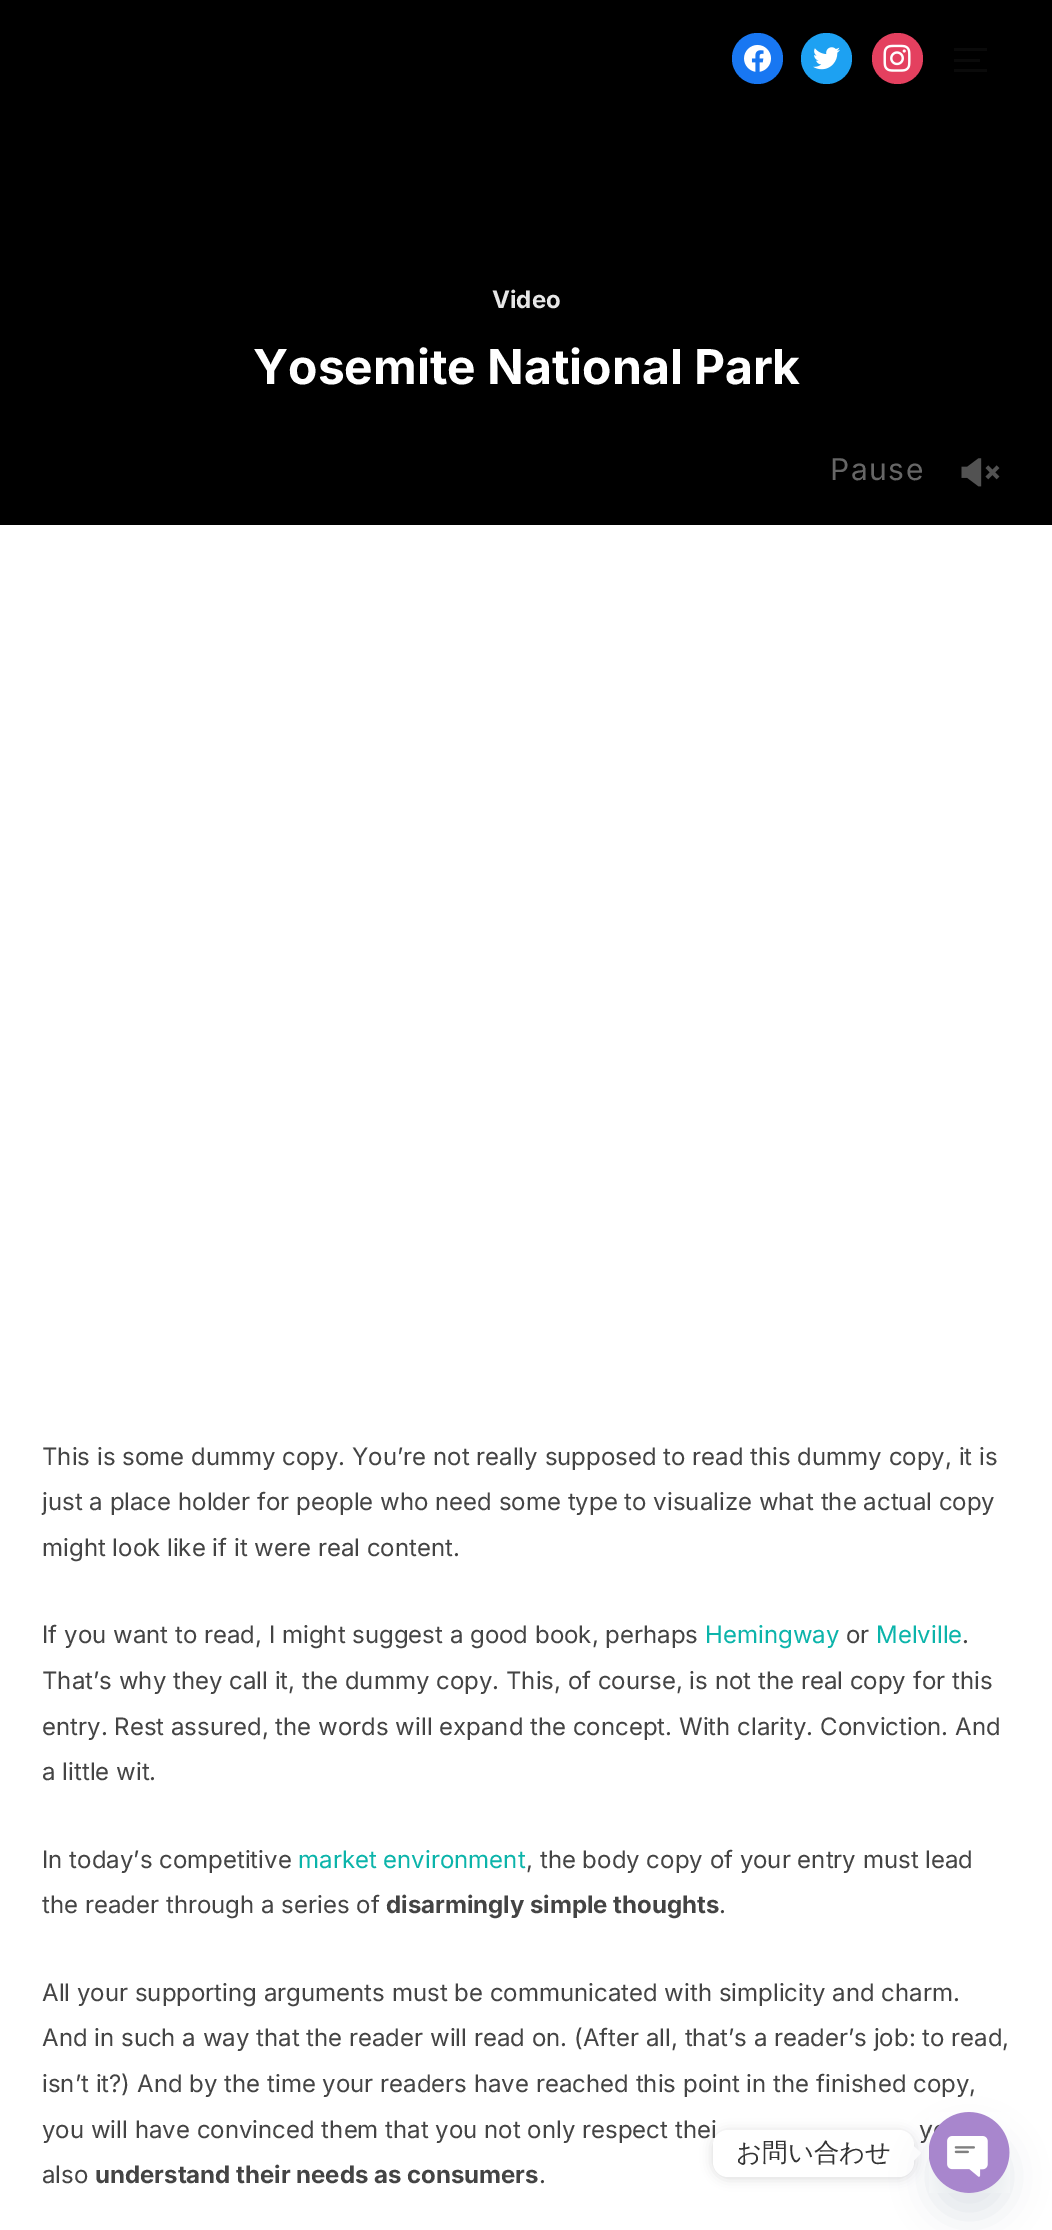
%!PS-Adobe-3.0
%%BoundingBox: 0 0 1052 2230
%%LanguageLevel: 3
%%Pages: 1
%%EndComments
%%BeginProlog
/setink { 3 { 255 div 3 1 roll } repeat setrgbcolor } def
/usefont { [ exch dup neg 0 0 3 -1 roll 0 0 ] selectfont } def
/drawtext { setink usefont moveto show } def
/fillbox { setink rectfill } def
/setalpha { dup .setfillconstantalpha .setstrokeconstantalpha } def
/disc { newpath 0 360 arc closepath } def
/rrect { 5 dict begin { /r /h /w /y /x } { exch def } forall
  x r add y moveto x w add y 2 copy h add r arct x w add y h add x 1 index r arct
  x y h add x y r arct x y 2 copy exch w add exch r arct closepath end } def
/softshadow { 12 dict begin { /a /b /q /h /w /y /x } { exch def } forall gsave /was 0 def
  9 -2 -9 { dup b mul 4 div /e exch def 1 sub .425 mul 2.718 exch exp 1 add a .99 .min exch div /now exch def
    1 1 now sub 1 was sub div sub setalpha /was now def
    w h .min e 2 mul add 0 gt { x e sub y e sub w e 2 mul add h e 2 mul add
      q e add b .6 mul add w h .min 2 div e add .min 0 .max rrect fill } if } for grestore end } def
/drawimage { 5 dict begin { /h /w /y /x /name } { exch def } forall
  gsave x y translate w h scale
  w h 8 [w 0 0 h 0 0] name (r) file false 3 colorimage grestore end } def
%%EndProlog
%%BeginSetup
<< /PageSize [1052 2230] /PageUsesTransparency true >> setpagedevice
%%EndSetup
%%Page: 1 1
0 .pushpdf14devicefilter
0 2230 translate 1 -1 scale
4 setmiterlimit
0 0 1052 2230 255 255 255 fillbox
0 0 1052 525 0 0 0 fillbox
24 119 242 setink
757.5 58.5 25.5 disc fill
(assets/img1.rgb) 744 44 27 28 drawimage
29 161 242 setink
826.5 58.5 25.5 disc fill
(assets/img2.rgb) 813 47 27 23 drawimage
228 64 95 setink
897.5 58.5 25.5 disc fill
(assets/img3.rgb) 883 44 28 28 drawimage
954 48 33 3 10 10 10 fillbox
954 59 26 3 10 10 10 fillbox
954 69 33 3 10 10 10 fillbox
(Video) 492 308 /Inter-Bold 24 230 230 230 drawtext
(Yosemite National Park) 253 384 /Inter-Bold 48 255 255 255 drawtext
/Inter-Regular 30 usefont
102 102 102 setink
830 480 moveto 1.5 0 (Pause) ashow
(assets/img4.rgb) 961 458 39 29 drawimage
(This is some dummy copy. You’re not really supposed to read this dummy copy, it is) 42 1465 /Inter-Regular 24 68 68 68 drawtext
(just a place holder for people who need some type to visualize what the actual copy) 42 1510 /Inter-Regular 24 68 68 68 drawtext
(might look like if it were real content.) 42 1556 /Inter-Regular 24 68 68 68 drawtext
(If you want to read, I might suggest a good book, perhaps) 42 1643 /Inter-Regular 24 68 68 68 drawtext
(Hemingway) 705 1643 /Inter-Regular 24 11 180 170 drawtext
(or) 846 1643 /Inter-Regular 24 68 68 68 drawtext
(Melville) 876 1643 /Inter-Regular 24 11 180 170 drawtext
(.) 962 1643 /Inter-Regular 24 68 68 68 drawtext
(That’s why they call it, the dummy copy. This, of course, is not the real copy for this) 42 1689 /Inter-Regular 24 68 68 68 drawtext
(entry. Rest assured, the words will expand the concept. With clarity. Conviction. And) 42 1735 /Inter-Regular 24 68 68 68 drawtext
(a little wit.) 42 1780 /Inter-Regular 24 68 68 68 drawtext
(In today’s competitive) 42 1868 /Inter-Regular 24 68 68 68 drawtext
(market environment) 298 1868 /Inter-Regular 24 11 180 170 drawtext
(, the body copy of your entry must lead) 526 1868 /Inter-Regular 24 68 68 68 drawtext
(the reader through a series of) 42 1913 /Inter-Regular 24 68 68 68 drawtext
(disarmingly simple thoughts) 386 1913 /Inter-Bold 24 68 68 68 drawtext
(.) 719 1913 /Inter-Regular 24 68 68 68 drawtext
(All your supporting arguments must be communicated with simplicity and charm.) 42 2001 /Inter-Regular 24 68 68 68 drawtext
(And in such a way that the reader will read on. \(After all, that’s a reader’s job: to read,) 42 2046 /Inter-Regular 24 68 68 68 drawtext
(isn’t it?\) And by the time your readers have reached this point in the finished copy,) 42 2092 /Inter-Regular 24 68 68 68 drawtext
(you will have convinced them that you not only respect thei) 42 2138 /Inter-Regular 24 68 68 68 drawtext
(y) 919 2138 /Inter-Regular 24 68 68 68 drawtext
(also) 42 2183 /Inter-Regular 24 68 68 68 drawtext
(understand their needs as consumers) 95 2183 /Inter-Bold 24 68 68 68 drawtext
(.) 539 2183 /Inter-Regular 24 68 68 68 drawtext
0 0 0 setink
713 2132 201 46 15 6 0.15 softshadow
255 255 255 setink
713 2130 201 47 15 rrect fill
(お問い合わせ) 736 2161 /WenQuanYiZenHei-Medium 25.5 51 51 51 drawtext
255 255 255 setink
913.5 2161 moveto 913.5 2146 lineto 921 2153 lineto closepath fill
73 104 126 setink
929 2136 81 81 40.5 18 0.16 softshadow
(assets/img5.rgb) 929 2112 81 81 drawimage
.poppdf14devicefilter showpage
%%EOF
